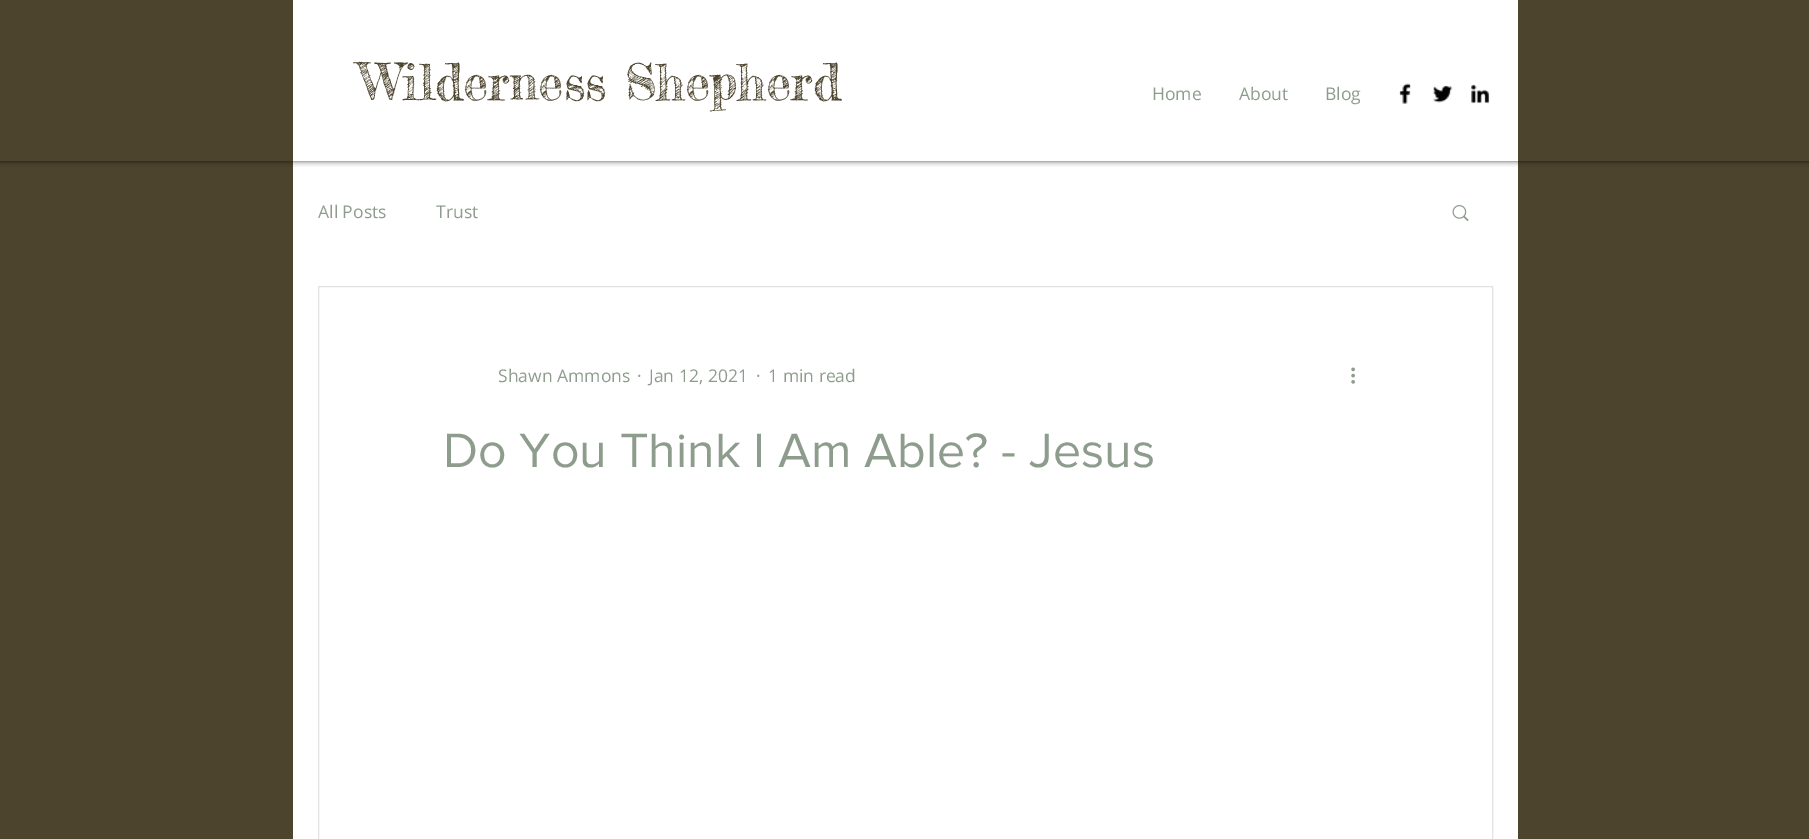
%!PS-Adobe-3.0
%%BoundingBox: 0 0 1809 839
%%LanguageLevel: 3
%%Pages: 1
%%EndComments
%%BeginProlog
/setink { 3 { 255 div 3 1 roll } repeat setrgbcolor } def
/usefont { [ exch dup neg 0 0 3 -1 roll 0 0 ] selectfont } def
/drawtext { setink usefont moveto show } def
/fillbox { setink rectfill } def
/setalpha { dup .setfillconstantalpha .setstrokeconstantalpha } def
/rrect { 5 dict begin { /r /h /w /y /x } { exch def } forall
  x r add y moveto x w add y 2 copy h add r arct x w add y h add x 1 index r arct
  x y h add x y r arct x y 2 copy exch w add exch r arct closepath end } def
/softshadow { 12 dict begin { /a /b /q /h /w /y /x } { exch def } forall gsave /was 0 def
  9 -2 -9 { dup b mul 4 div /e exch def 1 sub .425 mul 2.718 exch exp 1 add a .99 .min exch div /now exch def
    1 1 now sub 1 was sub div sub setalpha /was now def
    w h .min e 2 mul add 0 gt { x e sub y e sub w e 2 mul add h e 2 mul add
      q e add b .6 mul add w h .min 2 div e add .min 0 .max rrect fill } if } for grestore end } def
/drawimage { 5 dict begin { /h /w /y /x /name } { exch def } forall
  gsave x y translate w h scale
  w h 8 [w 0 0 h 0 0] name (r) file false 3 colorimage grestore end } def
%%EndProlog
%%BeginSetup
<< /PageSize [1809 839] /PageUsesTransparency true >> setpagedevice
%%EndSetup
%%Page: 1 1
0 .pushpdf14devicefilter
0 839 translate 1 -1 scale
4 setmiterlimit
0 0 1809 839 77 68 46 fillbox
293 161 1225 678 255 255 255 fillbox
gsave
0 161 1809 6 rectclip
0 0 0 setink
0 0 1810 161 0 3 0.7 softshadow
grestore
293 0 1225 161 255 255 255 fillbox
(Wilderness Shepherd) 359 100 /FrederickatheGreat-Regular 50 77 68 46 drawtext
(Home) 1152 100 /OpenSans-Regular 17.5 141 156 141 drawtext
(About) 1239 100 /OpenSans-Regular 17.5 141 156 141 drawtext
(Blog) 1325 100 /OpenSans-Regular 17.5 141 156 141 drawtext
(assets/img1.rgb) 1399 83 12 21 drawimage
(assets/img2.rgb) 1432 85 21 18 drawimage
(assets/img3.rgb) 1471 84 19 20 drawimage
(All Posts) 318 218 /OpenSans-Regular 17.5 141 156 141 drawtext
(Trust) 436 218 /OpenSans-Regular 17.5 141 156 141 drawtext
(assets/img4.rgb) 1452 205 17 16 drawimage
226 226 226 setink
318.5 286.5 1174 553 rectstroke
(Shawn Ammons) 498 382 /OpenSans-Regular 17.5 141 156 141 drawtext
(·) 637 382 /OpenSans-Regular 17.5 141 156 141 drawtext
(Jan 12, 2021) 649 382 /OpenSans-Regular 17.5 141 156 141 drawtext
(·) 756 382 /OpenSans-Regular 17.5 141 156 141 drawtext
(1 min read) 768 382 /OpenSans-Regular 17.5 141 156 141 drawtext
(assets/img5.rgb) 1351 367 4 17 drawimage
(Do You Think I Am Able? - Jesus) 443 467 /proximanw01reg-Regular 50 141 156 141 drawtext
.poppdf14devicefilter showpage
%%EOF
